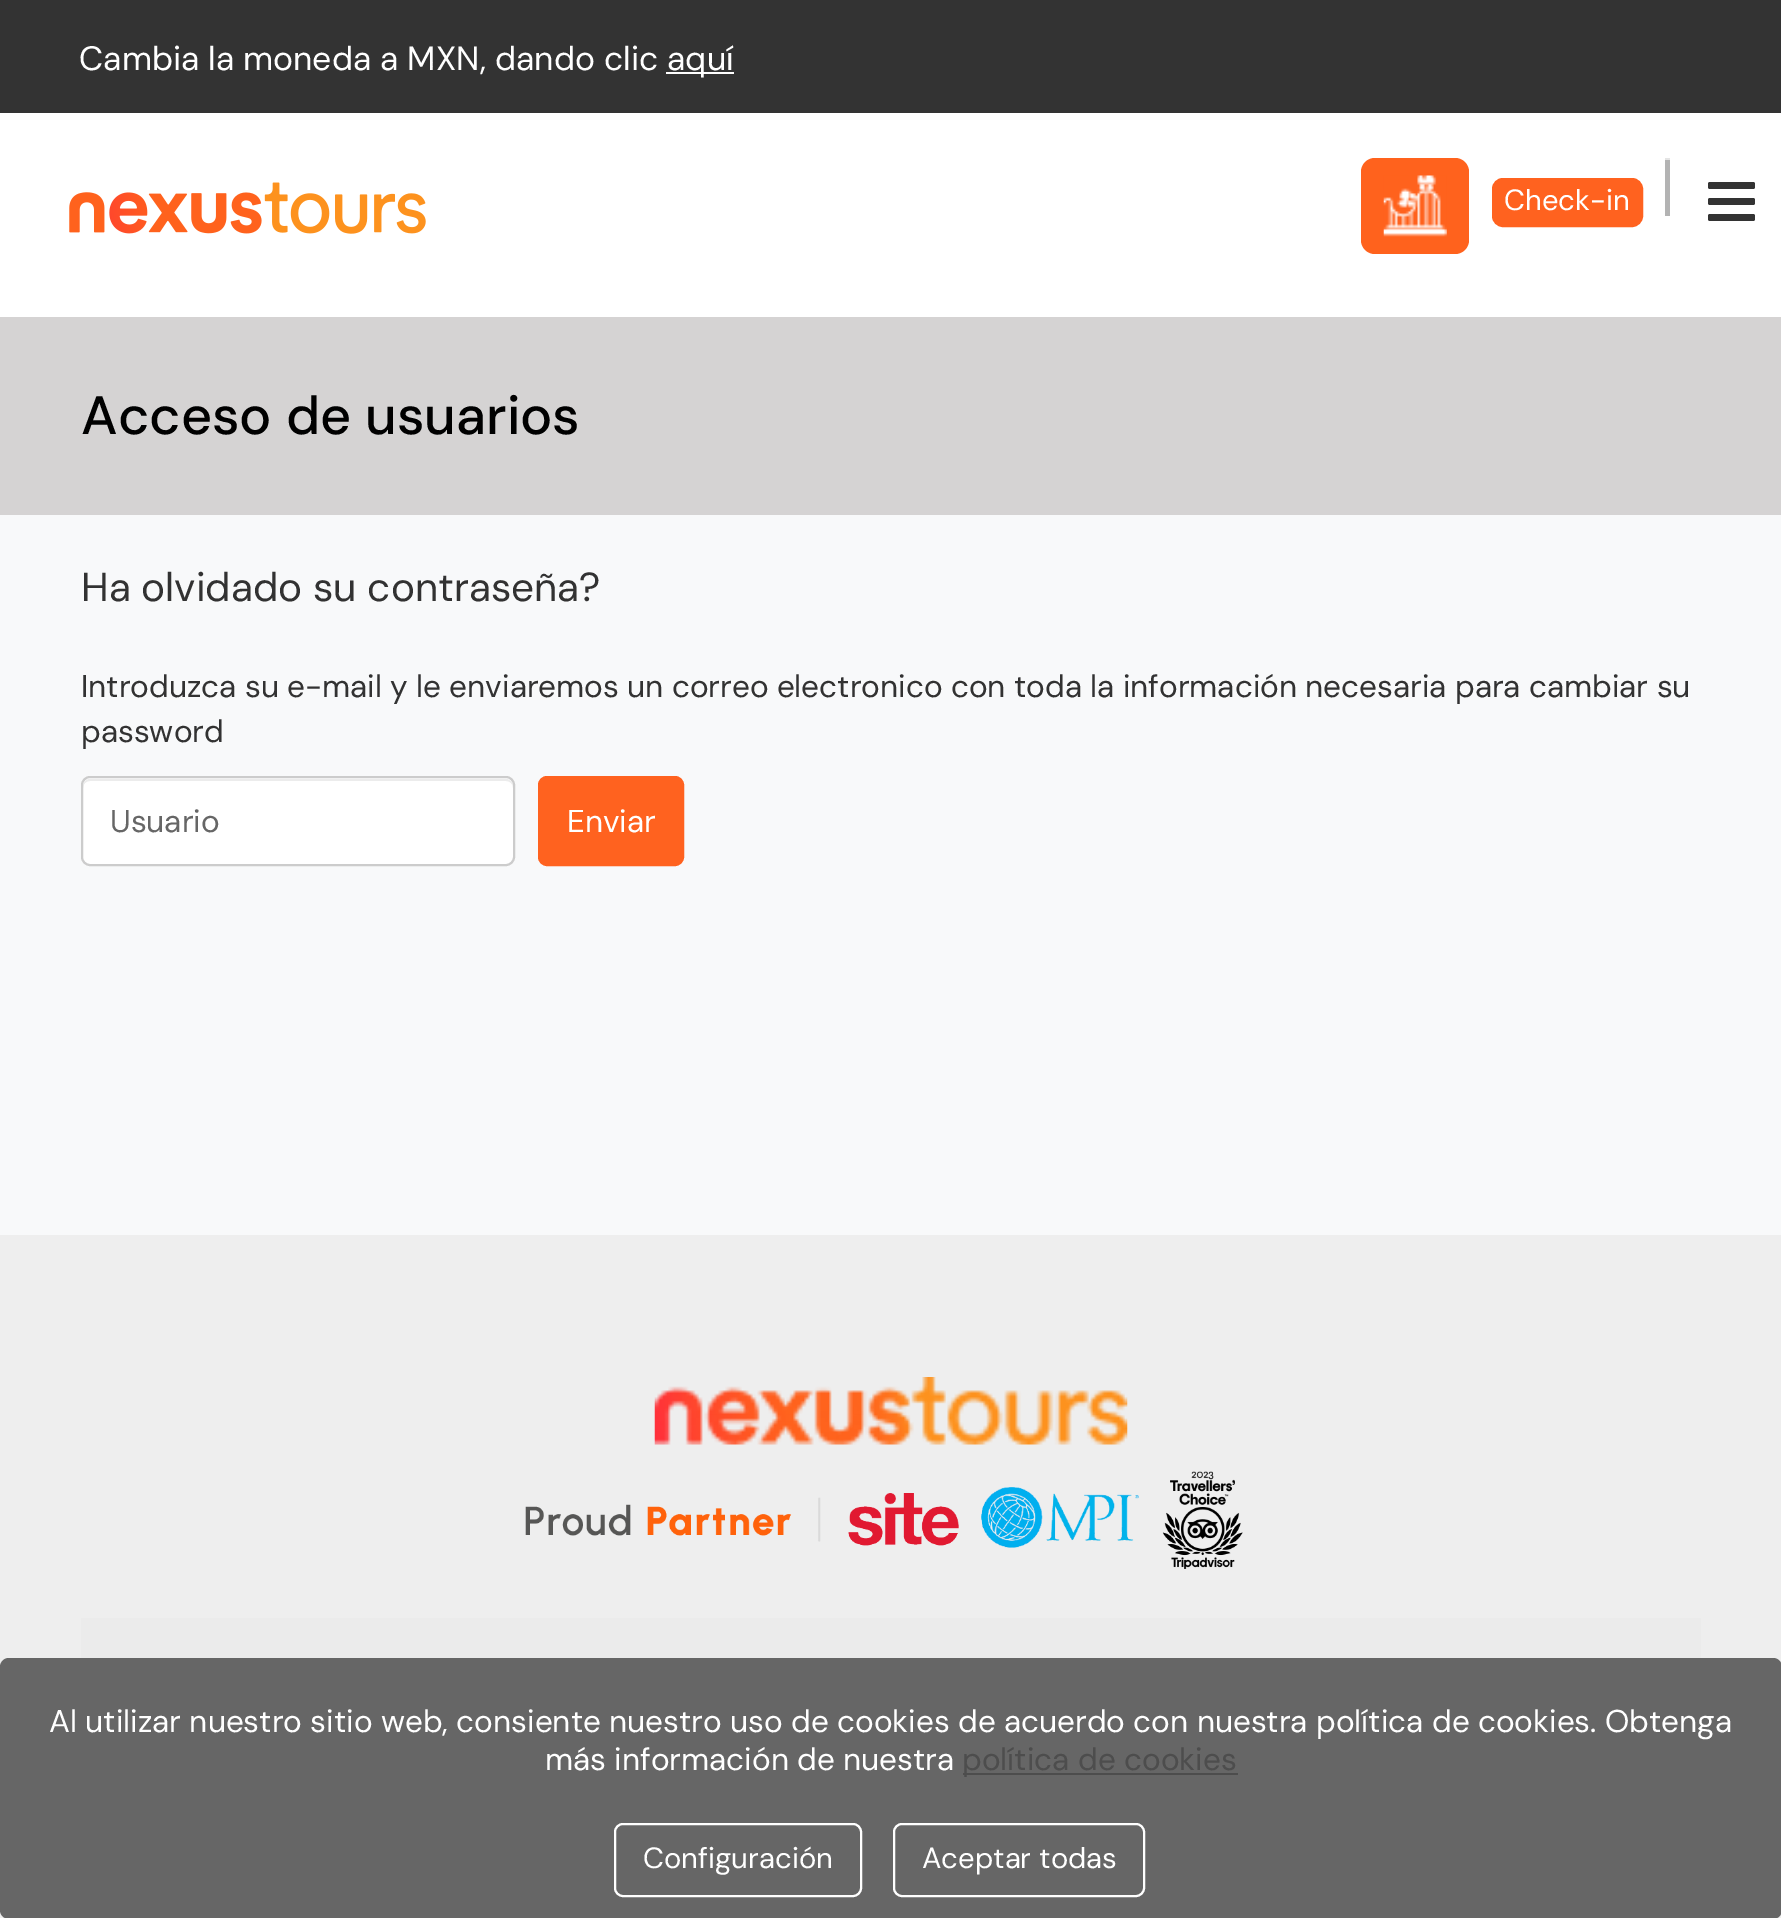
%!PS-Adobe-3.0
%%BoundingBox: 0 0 1781 1918
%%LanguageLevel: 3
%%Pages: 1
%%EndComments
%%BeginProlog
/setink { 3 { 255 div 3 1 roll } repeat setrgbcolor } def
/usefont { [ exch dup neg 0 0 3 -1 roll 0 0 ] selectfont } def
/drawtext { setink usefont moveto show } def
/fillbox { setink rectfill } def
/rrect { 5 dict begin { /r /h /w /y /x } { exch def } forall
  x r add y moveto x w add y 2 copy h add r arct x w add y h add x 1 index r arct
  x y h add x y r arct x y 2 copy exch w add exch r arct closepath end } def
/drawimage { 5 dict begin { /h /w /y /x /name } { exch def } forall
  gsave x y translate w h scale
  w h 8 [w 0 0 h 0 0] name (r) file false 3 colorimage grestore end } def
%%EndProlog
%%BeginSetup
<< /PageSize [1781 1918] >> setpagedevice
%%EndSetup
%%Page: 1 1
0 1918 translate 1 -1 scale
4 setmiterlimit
0 0 1781 1918 248 249 250 fillbox
0 0 1781 113 51 51 51 fillbox
(Cambia la moneda a MXN, dando clic) 79 70 /DMSans-Regular 33.75 255 255 255 drawtext
666 72 68 2 255 255 255 fillbox
(aquí) 667 70 /DMSans-Regular 33.75 255 255 255 drawtext
0 113 1781 204 255 255 255 fillbox
(assets/img1.rgb) 69 182 357 52 drawimage
255 98 29 setink
1361 158 108 96 14 rrect fill
(assets/img2.rgb) 1383 175 64 62 drawimage
255 98 31 setink
1493 179 149 47 10 rrect gsave fill grestore
2 setlinewidth
stroke
(Check-in) 1504 210 /DMSans-Regular 29.25 255 255 255 drawtext
1665 158 5 58 179 179 179 fillbox
1665 158 5 2 228 228 228 fillbox
51 51 51 setink
1708 182 47 7 2 rrect fill
1708 198 47 7 2 rrect fill
1708 214 47 7 2 rrect fill
0 317 1781 198 213 211 211 fillbox
(Acceso de usuarios) 81 434 /DMSans-Medium 54 0 0 0 drawtext
(Ha olvidado su contraseña?) 81 601 /DMSans-Regular 40.5 50 50 50 drawtext
(Introduzca su e-mail y le enviaremos un correo electronico con toda la información necesaria para cambiar su) 81 697 /DMSans-Regular 31.5 50 50 50 drawtext
(password) 81 742 /DMSans-Regular 31.5 50 50 50 drawtext
255 255 255 setink
81 776 434 90 9 rrect fill
236 236 236 setink
90 781 moveto 506 781 lineto 510 781 513 784 513 788 curveto 513 784 511 779 506 779 curveto 90 779 lineto 85 779 83 784 83 788 curveto 83 784 86 781 90 781 curveto closepath fill
204 204 204 setink
82 777 432 88 8 rrect stroke
(Usuario) 110 832 /DMSans-Regular 31.5 102 102 102 drawtext
255 98 31 setink
539 777 144 88 8 rrect gsave fill grestore
stroke
(Enviar) 567 832 /DMSans-Regular 31.5 255 255 255 drawtext
0 1235 1781 683 238 238 238 fillbox
(assets/img3.rgb) 654 1377 474 68 drawimage
(assets/img4.rgb) 525 1471 718 98 drawimage
81 1618 1620 40 235 235 235 fillbox
102 102 102 setink
0 1658 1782 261 9 rrect fill
(Al utilizar nuestro sitio web, consiente nuestro uso de cookies de acuerdo con nuestra política de cookies. Obtenga) 49 1732 /DMSans-Regular 31.5 255 255 255 drawtext
(más información de nuestra) 545 1770 /DMSans-Regular 31.5 255 255 255 drawtext
963 1773 275 2 77 77 77 fillbox
(política de cookies) 962 1770 /DMSans-Regular 31.5 77 77 77 drawtext
255 255 255 setink
615 1824 246 72 8 rrect stroke
(Configuración) 643 1868 /DMSans-Regular 29.25 255 255 255 drawtext
894 1824 250 72 8 rrect stroke
(Aceptar todas) 922 1868 /DMSans-Regular 29.25 255 255 255 drawtext
showpage
%%EOF
